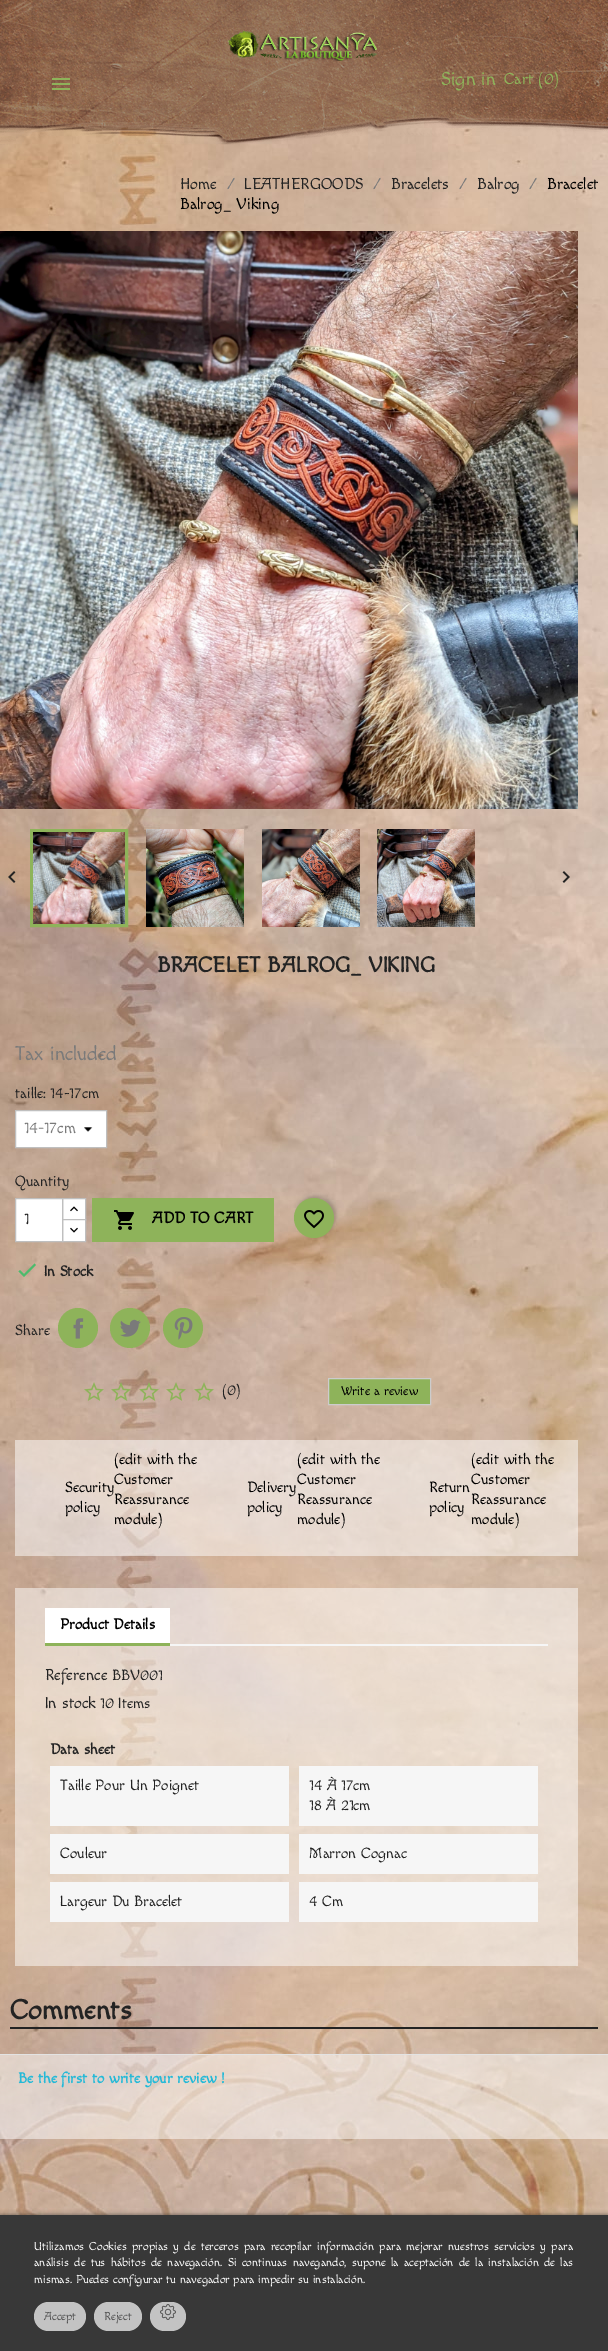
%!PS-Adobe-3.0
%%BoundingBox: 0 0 608 2351
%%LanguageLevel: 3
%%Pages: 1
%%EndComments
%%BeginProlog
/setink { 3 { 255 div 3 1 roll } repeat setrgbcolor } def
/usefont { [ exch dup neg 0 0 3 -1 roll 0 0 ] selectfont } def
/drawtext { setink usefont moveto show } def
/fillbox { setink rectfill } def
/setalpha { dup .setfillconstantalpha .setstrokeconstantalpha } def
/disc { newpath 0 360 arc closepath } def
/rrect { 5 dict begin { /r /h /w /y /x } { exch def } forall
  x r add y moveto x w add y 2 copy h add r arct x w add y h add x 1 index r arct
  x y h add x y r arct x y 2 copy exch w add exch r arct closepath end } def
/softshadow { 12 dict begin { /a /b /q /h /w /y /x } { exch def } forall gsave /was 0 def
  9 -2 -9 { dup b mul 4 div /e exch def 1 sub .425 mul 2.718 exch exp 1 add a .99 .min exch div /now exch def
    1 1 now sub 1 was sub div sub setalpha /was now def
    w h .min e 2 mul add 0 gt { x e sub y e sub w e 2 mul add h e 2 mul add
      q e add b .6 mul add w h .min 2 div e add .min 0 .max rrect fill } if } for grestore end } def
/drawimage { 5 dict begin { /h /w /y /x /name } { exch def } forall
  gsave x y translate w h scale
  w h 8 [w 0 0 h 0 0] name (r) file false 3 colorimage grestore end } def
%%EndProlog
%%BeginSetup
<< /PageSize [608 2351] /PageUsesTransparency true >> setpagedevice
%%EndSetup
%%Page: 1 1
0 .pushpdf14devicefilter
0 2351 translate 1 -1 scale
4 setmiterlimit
0 0 608 2351 255 255 255 fillbox
(assets/img1.rgb) 0 116 608 2099 drawimage
(assets/img2.rgb) 0 0 608 145 drawimage
(assets/img3.rgb) 228 30 149 31 drawimage
(assets/img4.rgb) 52 78 18 12 drawimage
(Sign in) 441 85 /Macondo-Regular 19 142 179 90 drawtext
(Cart \(0\)) 504 84 /Macondo-Regular 16 142 179 90 drawtext
(Home) 180 189 /Macondo-Regular 16 35 35 35 drawtext
(/) 227 189 /Macondo-Regular 16 122 122 122 drawtext
(LEATHERGOODS) 244 189 /Macondo-Regular 16 35 35 35 drawtext
(/) 373 189 /Macondo-Regular 16 122 122 122 drawtext
(Bracelets) 391 189 /Macondo-Regular 16 35 35 35 drawtext
(/) 459 189 /Macondo-Regular 16 122 122 122 drawtext
(Balrog) 477 189 /Macondo-Regular 16 35 35 35 drawtext
(/) 529 189 /Macondo-Regular 16 122 122 122 drawtext
(Bracelet) 547 189 /Macondo-Regular 16 0 0 0 drawtext
(Balrog_ Viking) 180 209 /Macondo-Regular 16 0 0 0 drawtext
(assets/img5.rgb) 0 231 578 578 drawimage
142 179 90 setink
3 setlinewidth
31.5 830.5 95 95 rectstroke
(assets/img6.rgb) 146 829 98 98 drawimage
(assets/img7.rgb) 262 829 98 98 drawimage
(assets/img8.rgb) 377 829 98 98 drawimage
(assets/img9.rgb) 33 832 92 92 drawimage
(assets/img10.rgb) 8 871 8 12 drawimage
(assets/img11.rgb) 562 871 8 12 drawimage
(BRACELET BALROG_ VIKING) 157 972 /Macondo-Bold 22 35 35 35 drawtext
(Tax included) 15 1060 /Macondo-Regular 20 122 122 122 drawtext
(taille: 14-17cm) 15 1098 /Macondo-Regular 15 35 35 35 drawtext
16 1111 90 36 255 255 255 fillbox
(assets/img12.rgb) 84 1127 9 5 drawimage
191 191 191 setink
1 setlinewidth
15.5 1110.5 91 37 rectstroke
(14-17cm) 24 1133 /Macondo-Regular 16 122 122 122 drawtext
(Quantity) 15 1186 /Macondo-Regular 15 35 35 35 drawtext
63 1199 22 20 255 255 255 fillbox
191 191 191 setink
62.5 1198.5 23 22 rectstroke
255 255 255 setink
62.5 1219.5 moveto 85.5 1219.5 lineto 85.5 1241.5 lineto 62.5 1241.5 lineto closepath gsave fill grestore
191 191 191 setink
stroke
255 255 255 setink
15.5 1198.5 moveto 62.5 1198.5 lineto 62.5 1241.5 lineto 15.5 1241.5 lineto closepath gsave fill grestore
191 191 191 setink
stroke
(1) 24 1224 /Macondo-Regular 16 35 35 35 drawtext
(assets/img13.rgb) 70 1206 8 6 drawimage
(assets/img14.rgb) 70 1227 8 6 drawimage
92 1198 182 44 142 179 90 fillbox
(assets/img15.rgb) 114 1210 20 20 drawimage
(ADD TO CART) 152 1223 /Macondo-Bold 16 0 0 0 drawtext
296 1196 40 40 20 2 0.2 softshadow
142 179 90 setink
314 1218 20 disc fill
(assets/img16.rgb) 304 1210 20 19 drawimage
76 187 108 setink
24 1274 moveto 34.5 1263.5 lineto 36 1265 lineto 24 1277 lineto 18.5 1271.5 lineto 20 1270 lineto closepath fill
(In Stock) 44 1276 /Macondo-Bold 15 35 35 35 drawtext
(Share) 15 1335 /Macondo-Regular 15 35 35 35 drawtext
142 179 90 setink
78 1328 20 disc fill
(assets/img17.rgb) 73 1318 11 21 drawimage
130 1328 20 disc fill
(assets/img18.rgb) 120 1319 21 18 drawimage
183 1328 20 disc fill
(assets/img19.rgb) 174 1317 19 23 drawimage
(assets/img20.rgb) 84 1382 20 19 drawimage
(assets/img21.rgb) 111 1382 20 19 drawimage
(assets/img22.rgb) 139 1382 20 19 drawimage
(assets/img23.rgb) 166 1382 20 19 drawimage
(assets/img24.rgb) 194 1382 20 19 drawimage
(\(0\)) 222 1395 /Macondo-Regular 15 35 35 35 drawtext
142 179 90 setink
328.5 1378.5 moveto 430.5 1378.5 lineto 430.5 1404.5 lineto 328.5 1404.5 lineto closepath gsave fill grestore
204 204 204 setink
stroke
(Write a review) 341 1395 /Macondo-Regular 13 0 0 0 drawtext
0.5 setalpha
15 1440 563 116 255 255 255 fillbox
1 setalpha
(Security) 65 1492 /Macondo-Regular 15 0 0 0 drawtext
(policy) 65 1512 /Macondo-Regular 15 0 0 0 drawtext
(\(edit with the) 114 1464 /Macondo-Regular 15 0 0 0 drawtext
(Customer) 114 1484 /Macondo-Regular 15 0 0 0 drawtext
(Reassurance) 114 1504 /Macondo-Regular 15 0 0 0 drawtext
(module\)) 114 1524 /Macondo-Regular 15 0 0 0 drawtext
(Delivery) 247 1492 /Macondo-Regular 15 0 0 0 drawtext
(policy) 247 1512 /Macondo-Regular 15 0 0 0 drawtext
(\(edit with the) 297 1464 /Macondo-Regular 15 0 0 0 drawtext
(Customer) 297 1484 /Macondo-Regular 15 0 0 0 drawtext
(Reassurance) 297 1504 /Macondo-Regular 15 0 0 0 drawtext
(module\)) 297 1524 /Macondo-Regular 15 0 0 0 drawtext
(Return) 429 1492 /Macondo-Regular 15 0 0 0 drawtext
(policy) 429 1512 /Macondo-Regular 15 0 0 0 drawtext
(\(edit with the) 471 1464 /Macondo-Regular 15 0 0 0 drawtext
(Customer) 471 1484 /Macondo-Regular 15 0 0 0 drawtext
(Reassurance) 471 1504 /Macondo-Regular 15 0 0 0 drawtext
(module\)) 471 1524 /Macondo-Regular 15 0 0 0 drawtext
0.5 setalpha
15 1588 563 378 255 255 255 fillbox
1 setalpha
170 1644 378 2 246 246 246 fillbox
45 1608 125 35 255 255 255 fillbox
45 1643 125 3 142 179 90 fillbox
(Product Details) 60 1629 /Macondo-Bold 15 0 0 0 drawtext
(Reference) 45 1680 /Macondo-Regular 16 35 35 35 drawtext
(BBV001) 112 1680 /Macondo-Regular 15 35 35 35 drawtext
(In stock) 45 1708 /Macondo-Regular 16 35 35 35 drawtext
(10 Items) 100 1708 /Macondo-Regular 15 35 35 35 drawtext
(Data sheet) 50 1754 /Macondo-Bold 15 35 35 35 drawtext
50 1766 239 60 246 246 246 fillbox
(Taille Pour Un Poignet) 60 1790 /Macondo-Regular 15 35 35 35 drawtext
299 1766 239 60 246 246 246 fillbox
(14 À 17cm) 309 1790 /Macondo-Regular 15 35 35 35 drawtext
(18 À 21cm) 309 1810 /Macondo-Regular 15 35 35 35 drawtext
50 1834 239 40 246 246 246 fillbox
(Couleur) 60 1858 /Macondo-Regular 15 35 35 35 drawtext
299 1834 239 40 246 246 246 fillbox
(Marron Cognac) 309 1858 /Macondo-Regular 15 35 35 35 drawtext
50 1882 239 40 246 246 246 fillbox
(Largeur Du Bracelet) 60 1906 /Macondo-Regular 15 35 35 35 drawtext
299 1882 239 40 246 246 246 fillbox
(4 Cm) 309 1906 /Macondo-Regular 15 35 35 35 drawtext
10 2027 588 2 35 35 35 fillbox
(Comments) 10 2019 /Macondo-Bold 28 35 35 35 drawtext
0.5 setalpha
0 2055 608 84 255 255 255 fillbox
1 setalpha
0 2054 608 1 227 227 227 fillbox
(Be the first to write your review !) 18 2083 /Macondo-Bold 15 36 185 215 drawtext
0 0 0 setink
0 2215 608 136 0 2.5 0.5 softshadow
0 2215 608 136 56 56 56 fillbox
/Macondo-Regular 11.7 usefont
255 255 255 setink
34 2250 moveto 1.8 0 32 (Utilizamos Cookies propias y de terceros para recopilar información para mejorar nuestros servicios y para) widthshow
34 2266 moveto 1.75 0 32 (análisis de tus hábitos de navegación. Si continuas navegando, supone la aceptación de la instalación de las) widthshow
(mismas. Puedes configurar tu navegador para impedir su instalación.) 34 2283 /Macondo-Regular 11.7 255 255 255 drawtext
195 195 195 setink
150 2302 36 29 14.5 rrect fill
34 2302 52 29 14.5 rrect fill
(Accept) 44 2320 /Macondo-Regular 11.7 83 83 83 drawtext
195 195 195 setink
94 2302 48 29 14.5 rrect fill
(Reject) 104 2320 /Macondo-Regular 11.7 83 83 83 drawtext
(assets/img25.rgb) 160 2304 16 16 drawimage
.poppdf14devicefilter showpage
%%EOF
